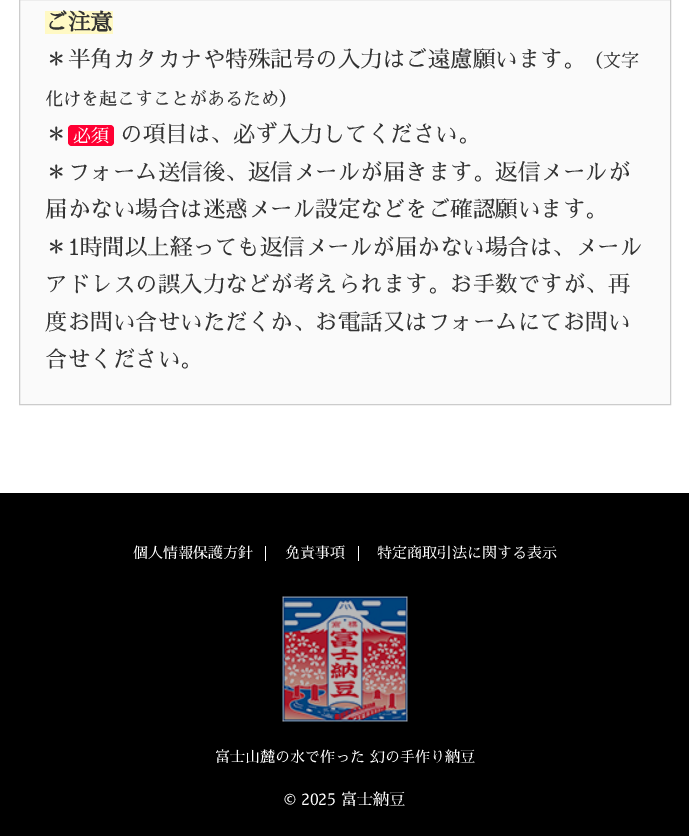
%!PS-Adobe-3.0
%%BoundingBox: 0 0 689 836
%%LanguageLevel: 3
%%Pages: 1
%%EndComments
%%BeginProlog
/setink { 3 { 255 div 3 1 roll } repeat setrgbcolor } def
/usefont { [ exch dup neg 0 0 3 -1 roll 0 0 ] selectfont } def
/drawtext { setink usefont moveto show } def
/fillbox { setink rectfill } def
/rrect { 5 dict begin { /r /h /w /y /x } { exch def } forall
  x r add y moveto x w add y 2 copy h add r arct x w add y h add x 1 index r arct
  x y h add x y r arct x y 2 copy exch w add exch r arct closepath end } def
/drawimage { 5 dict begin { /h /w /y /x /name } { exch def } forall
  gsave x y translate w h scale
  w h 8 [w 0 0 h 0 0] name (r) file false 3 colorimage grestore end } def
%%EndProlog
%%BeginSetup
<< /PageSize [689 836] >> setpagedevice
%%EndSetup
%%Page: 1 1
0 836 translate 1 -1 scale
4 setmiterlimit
0 0 689 836 255 255 255 fillbox
250 250 250 setink
19.5 -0.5 moveto 670.5 -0.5 lineto 670.5 404.5 lineto 19.5 404.5 lineto closepath gsave fill grestore
204 204 204 setink
stroke
45 11 68 23 255 249 196 fillbox
(ご注意) 45 30 /SawarabiMincho-Bold 22.5 51 51 51 drawtext
(＊半角カタカナや特殊記号の入力はご遠慮願います。) 45 67 /SawarabiMincho-Regular 22.5 51 51 51 drawtext
(（文字) 585 67 /SawarabiMincho-Regular 18 51 51 51 drawtext
(化けを起こすことがあるため）) 45 105 /SawarabiMincho-Regular 18 51 51 51 drawtext
(＊) 45 142 /SawarabiMincho-Regular 22.5 51 51 51 drawtext
255 0 51 setink
68 125 46 21 4 rrect fill
(必須) 73 142 /SawarabiMincho-Regular 18 255 255 255 drawtext
(の項目は、必ず入力してください。) 120 142 /SawarabiMincho-Regular 22.5 51 51 51 drawtext
(＊フォーム送信後、返信メールが届きます。返信メールが) 45 180 /SawarabiMincho-Regular 22.5 51 51 51 drawtext
(届かない場合は迷惑メール設定などをご確認願います。) 45 217 /SawarabiMincho-Regular 22.5 51 51 51 drawtext
(＊1時間以上経っても返信メールが届かない場合は、メール) 45 255 /SawarabiMincho-Regular 22.5 51 51 51 drawtext
(アドレスの誤入力などが考えられます。お手数ですが、再) 45 292 /SawarabiMincho-Regular 22.5 51 51 51 drawtext
(度お問い合せいただくか、お電話又はフォームにてお問い) 45 330 /SawarabiMincho-Regular 22.5 51 51 51 drawtext
(合せください。) 45 367 /SawarabiMincho-Regular 22.5 51 51 51 drawtext
0 493 689 343 0 0 0 fillbox
(個人情報保護方針) 133 558 /SawarabiMincho-Regular 15 255 255 255 drawtext
265 546 1 15 255 255 255 fillbox
(免責事項) 285 558 /SawarabiMincho-Regular 15 255 255 255 drawtext
358 546 1 15 255 255 255 fillbox
(特定商取引法に関する表示) 377 558 /SawarabiMincho-Regular 15 255 255 255 drawtext
(assets/img1.rgb) 282 596 126 126 drawimage
(富士山麓の水で作った 幻の手作り納豆) 215 762 /SawarabiMincho-Regular 15 255 255 255 drawtext
(© 2025 富士納豆) 284 805 /SawarabiMincho-Regular 16 255 255 255 drawtext
showpage
%%EOF
